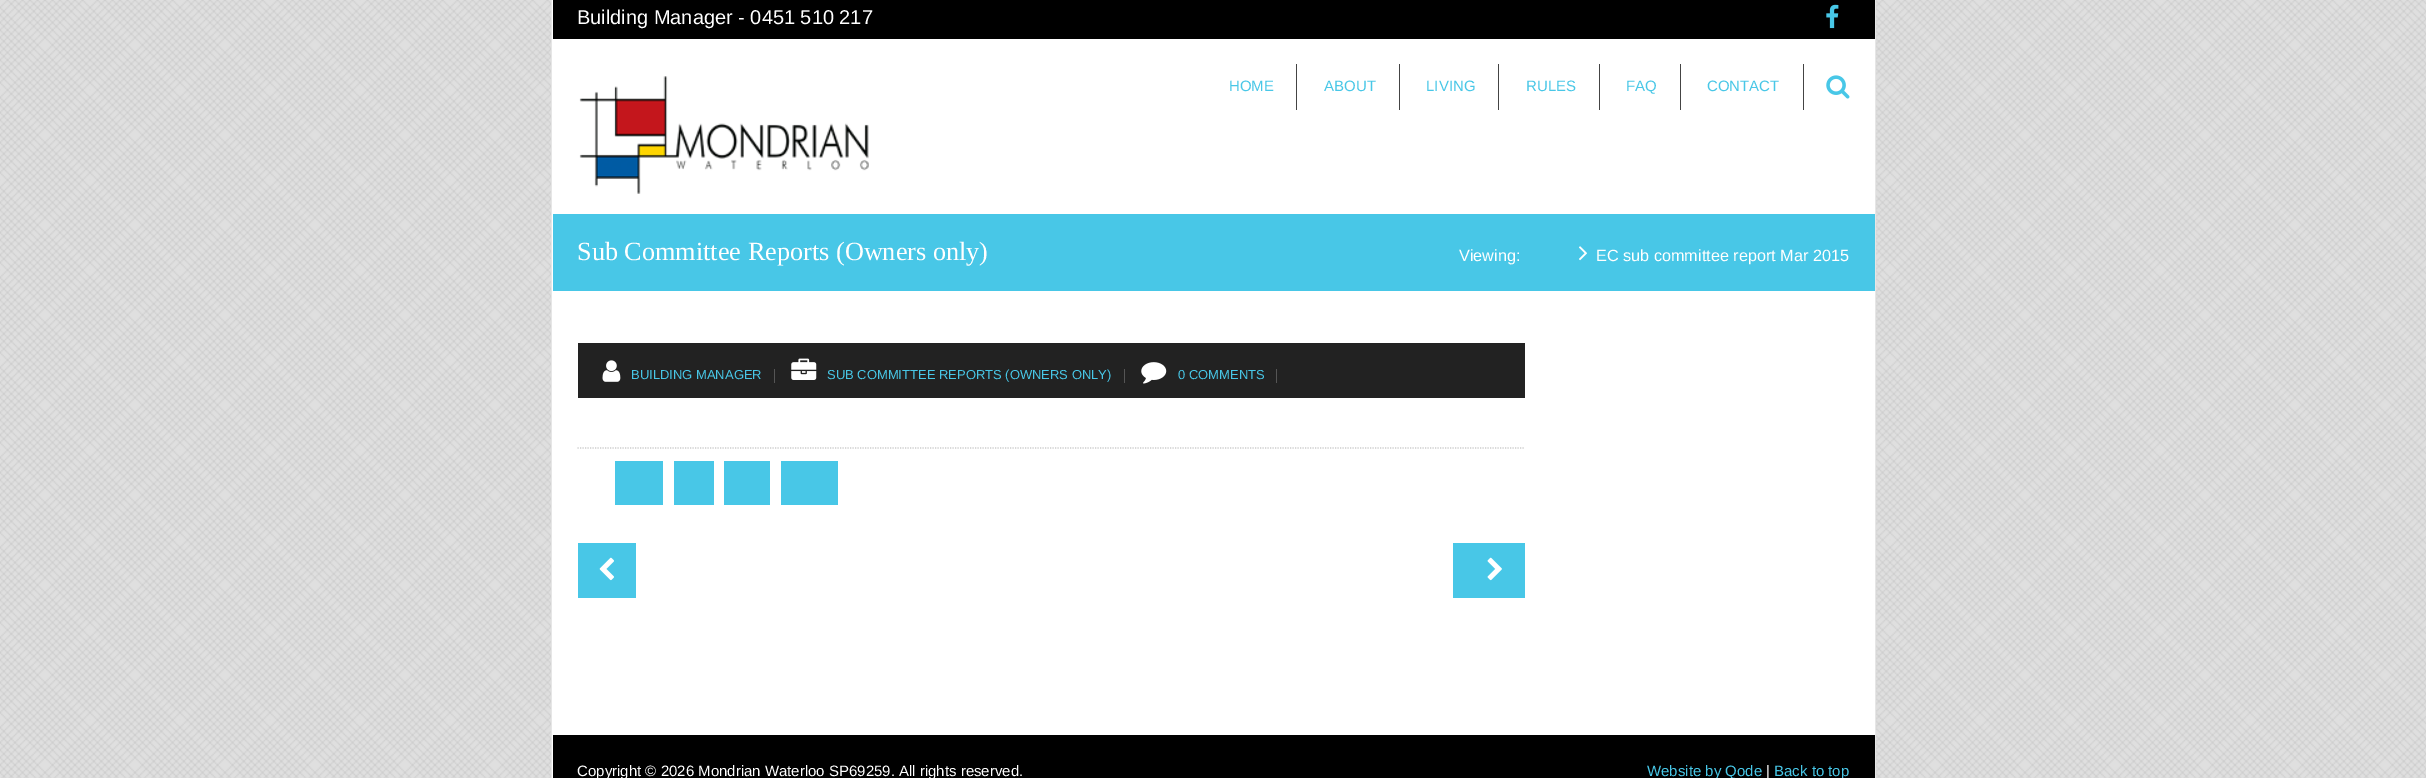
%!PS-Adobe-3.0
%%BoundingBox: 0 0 2426 778
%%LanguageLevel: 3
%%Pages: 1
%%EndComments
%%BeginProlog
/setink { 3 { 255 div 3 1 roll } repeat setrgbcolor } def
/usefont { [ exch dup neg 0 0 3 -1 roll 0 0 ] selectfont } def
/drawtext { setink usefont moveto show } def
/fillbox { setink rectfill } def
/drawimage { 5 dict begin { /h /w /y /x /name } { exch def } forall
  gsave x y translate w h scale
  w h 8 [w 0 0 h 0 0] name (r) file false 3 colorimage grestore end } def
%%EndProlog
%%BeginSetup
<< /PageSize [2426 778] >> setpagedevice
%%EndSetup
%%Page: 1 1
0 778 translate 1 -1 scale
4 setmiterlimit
0 0 2426 778 236 236 236 fillbox
(assets/img1.rgb) 0 0 2426 778 drawimage
552 0 1323 778 255 255 255 fillbox
1875 0 1 778 230 230 230 fillbox
551 0 1 778 230 230 230 fillbox
553 0 1322 39 0 0 0 fillbox
(Building Manager - 0451 510 217) 577 24 /LiberationSans-Regular 20 255 255 255 drawtext
(assets/img2.rgb) 1826 4 13 25 drawimage
(assets/img3.rgb) 579 76 290 118 drawimage
1296 64 1 46 68 68 68 fillbox
(HOME) 1229 91 /LiberationSans-Regular 15 72 199 231 drawtext
1399 64 1 46 68 68 68 fillbox
(ABOUT) 1324 91 /LiberationSans-Regular 15 72 199 231 drawtext
1498 64 1 46 68 68 68 fillbox
(LIVING) 1426 91 /LiberationSans-Regular 15 72 199 231 drawtext
1599 64 1 46 68 68 68 fillbox
(RULES) 1526 91 /LiberationSans-Regular 15 72 199 231 drawtext
1680 64 1 46 68 68 68 fillbox
(FAQ) 1626 91 /LiberationSans-Regular 15 72 199 231 drawtext
1803 64 1 46 68 68 68 fillbox
(CONTACT) 1707 91 /LiberationSans-Regular 15 72 199 231 drawtext
(assets/img4.rgb) 1826 75 24 24 drawimage
553 214 1322 77 72 199 231 fillbox
(Sub Committee Reports \(Owners only\)) 577 260 /LiberationSerif-Regular 26.25 255 255 255 drawtext
(Viewing:) 1459 261 /LiberationSans-Regular 16.25 255 255 255 drawtext
(assets/img5.rgb) 1579 246 8 15 drawimage
(EC sub committee report Mar 2015) 1596 261 /LiberationSans-Regular 16.25 255 255 255 drawtext
578 343 947 55 34 34 34 fillbox
774 369 1 14 85 85 85 fillbox
(assets/img6.rgb) 602 360 19 22 drawimage
(BUILDING MANAGER) 631 379 /LiberationSans-Regular 13 72 199 231 drawtext
1124 369 1 14 85 85 85 fillbox
(assets/img7.rgb) 791 358 26 22 drawimage
(SUB COMMITTEE REPORTS \(OWNERS ONLY\)) 827 379 /LiberationSans-Regular 13 72 199 231 drawtext
1276 369 1 14 85 85 85 fillbox
(assets/img8.rgb) 1141 362 26 22 drawimage
(0 COMMENTS) 1178 379 /LiberationSans-Regular 13 72 199 231 drawtext
204 204 204 setink
1.2 setlinewidth
[1.25 1.25] 0 setdash
577.5 448 moveto 1525 448 lineto stroke
615 461 48 44 72 199 231 fillbox
674 461 40 44 72 199 231 fillbox
724 461 46 44 72 199 231 fillbox
781 461 57 44 72 199 231 fillbox
578 543 58 55 72 199 231 fillbox
(assets/img9.rgb) 599 557 15 24 drawimage
1453 543 72 55 72 199 231 fillbox
(assets/img10.rgb) 1487 557 15 24 drawimage
553 735 1322 43 0 0 0 fillbox
(Copyright © 2026 Mondrian Waterloo SP69259. All rights reserved.) 577 776 /LiberationSans-Regular 15 255 255 255 drawtext
(Website by Qode) 1647 776 /LiberationSans-Regular 15 72 199 231 drawtext
(|) 1766 776 /LiberationSans-Regular 15 255 255 255 drawtext
(Back to top) 1774 776 /LiberationSans-Regular 15 72 199 231 drawtext
showpage
%%EOF
